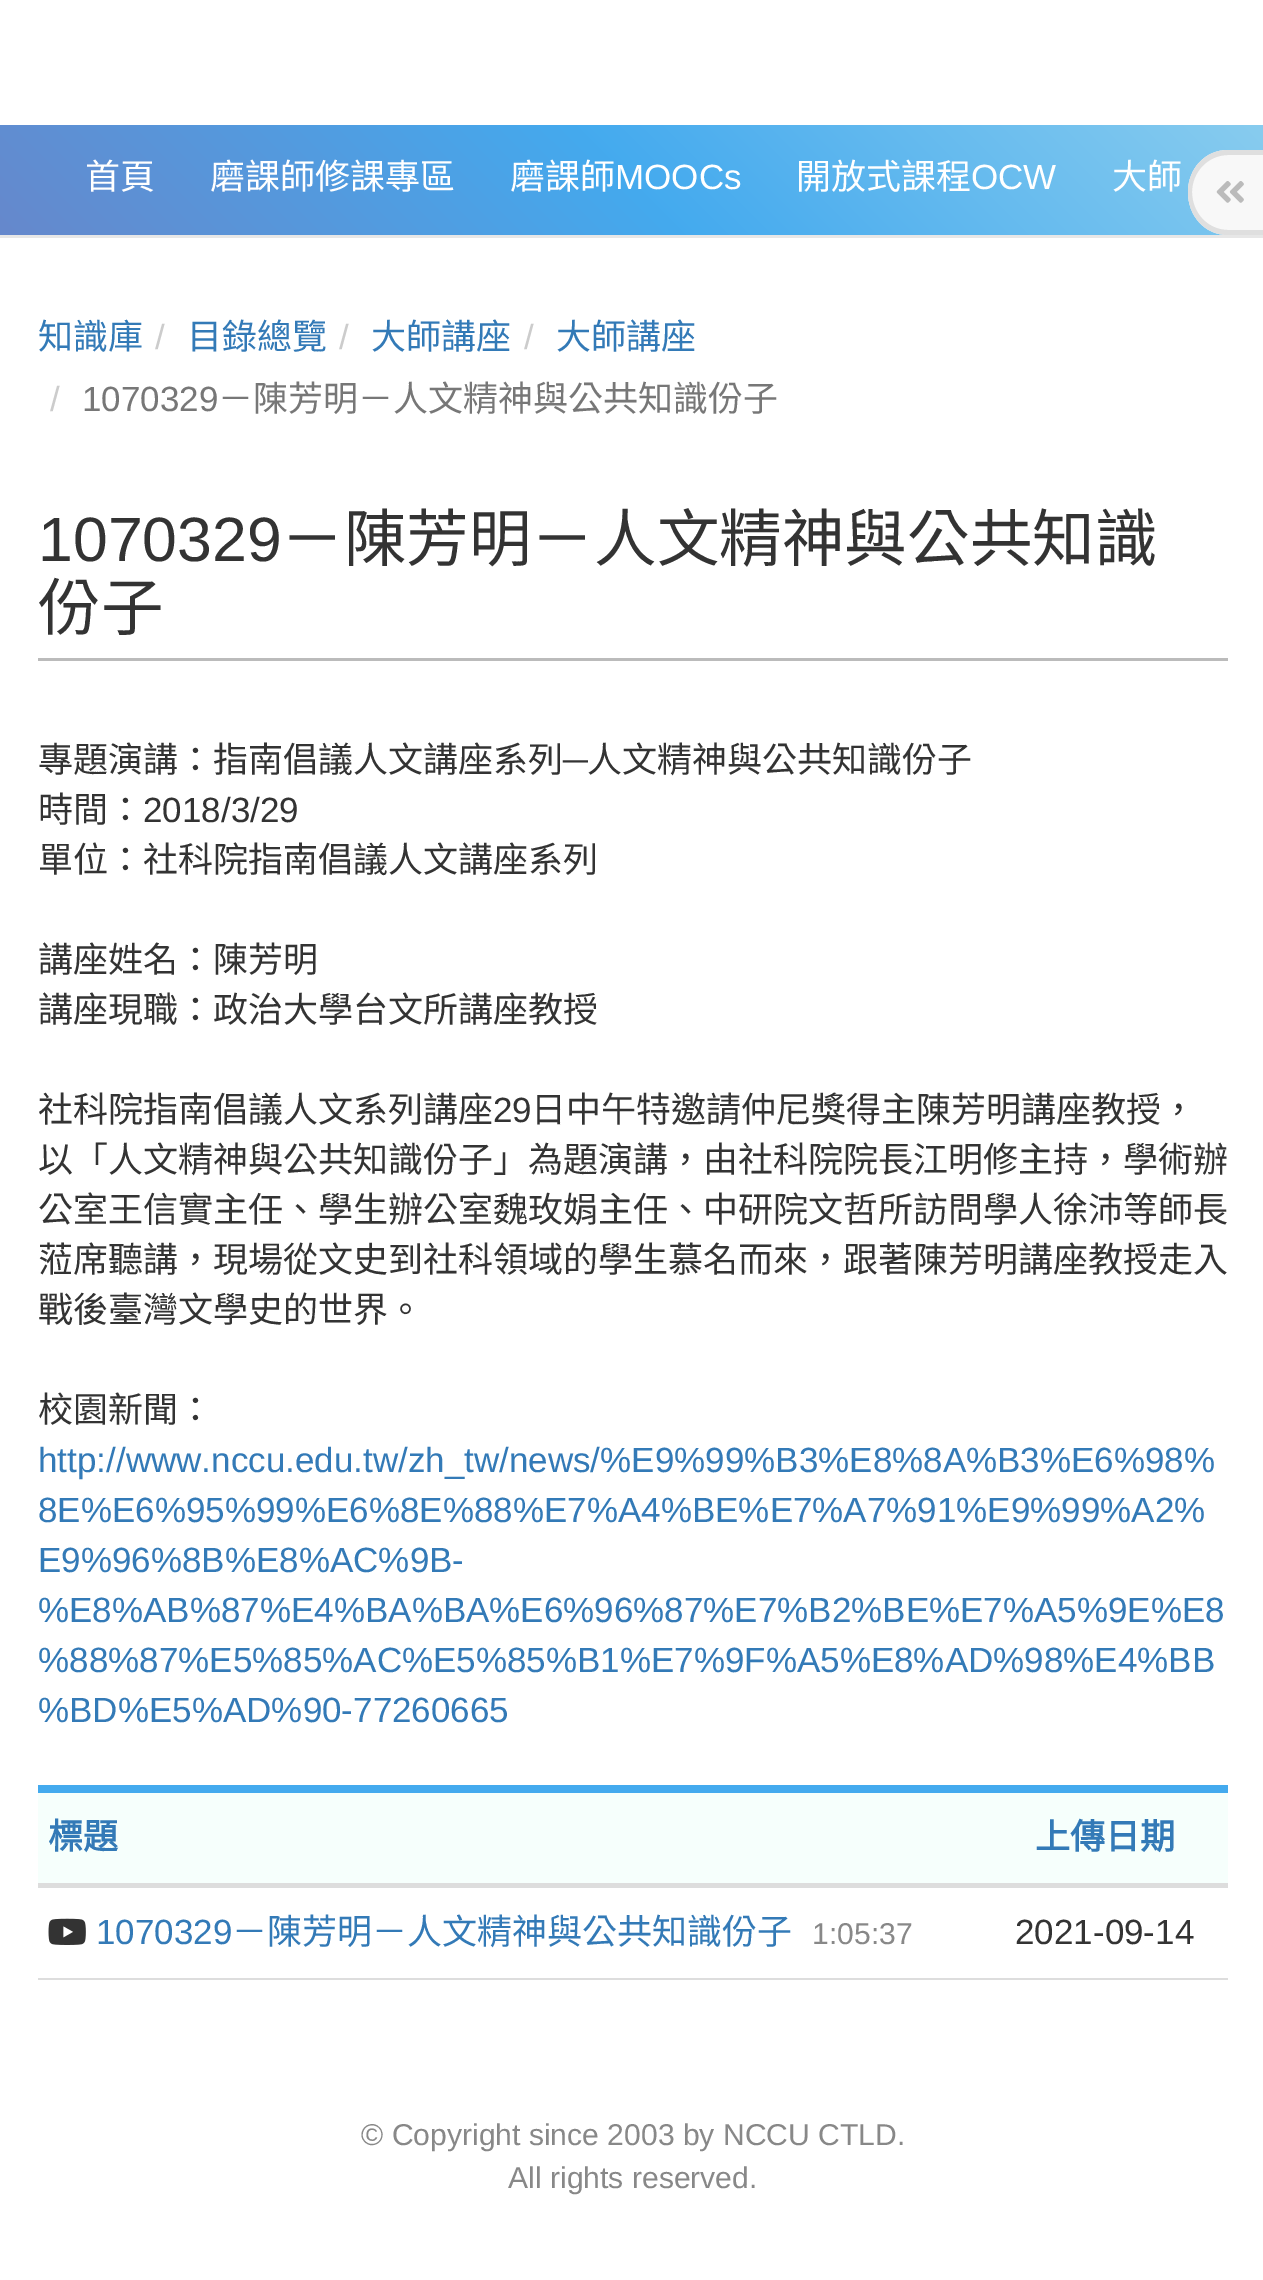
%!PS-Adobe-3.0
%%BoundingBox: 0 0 1263 2280
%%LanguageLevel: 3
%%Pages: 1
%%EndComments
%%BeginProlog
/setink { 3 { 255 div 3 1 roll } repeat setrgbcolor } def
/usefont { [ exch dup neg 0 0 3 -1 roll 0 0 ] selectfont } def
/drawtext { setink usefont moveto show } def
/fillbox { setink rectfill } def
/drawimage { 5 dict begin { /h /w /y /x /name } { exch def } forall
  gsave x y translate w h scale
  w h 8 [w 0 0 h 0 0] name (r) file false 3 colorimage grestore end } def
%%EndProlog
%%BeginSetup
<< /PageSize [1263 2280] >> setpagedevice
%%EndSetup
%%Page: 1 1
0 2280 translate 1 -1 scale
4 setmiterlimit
0 0 1263 2280 255 255 255 fillbox
gsave 0 125 moveto 1263 125 lineto 1263 235 lineto 0 235 lineto closepath clip newpath
<< /ShadingType 2 /ColorSpace /DeviceRGB /Coords [289 524 976 -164] /Extend [true true] /Function << /FunctionType 3 /Domain [0 1] /Functions [<< /FunctionType 2 /Domain [0 1] /C0 [0.4 0.533 0.8] /C1 [0.267 0.667 0.933] /N 1 >> << /FunctionType 2 /Domain [0 1] /C0 [0.267 0.667 0.933] /C1 [0.533 0.8 0.933] /N 1 >>] /Bounds [0.5] /Encode [0 1 0 1] >> >> shfill grestore
0 235 1263 3 231 231 231 fillbox
(首頁) 85 189 /NotoSansCJKTC-Regular 35 255 255 255 drawtext
(磨課師修課專區) 210 189 /NotoSansCJKTC-Regular 35 255 255 255 drawtext
(磨課師) 510 189 /NotoSansCJKTC-Regular 35 255 255 255 drawtext
(MOOCs) 615 189 /LiberationSans-Regular 35 255 255 255 drawtext
(開放式課程) 796 189 /NotoSansCJKTC-Regular 35 255 255 255 drawtext
(OCW) 971 189 /LiberationSans-Regular 35 255 255 255 drawtext
(大師) 1112 189 /NotoSansCJKTC-Regular 35 255 255 255 drawtext
248 248 248 setink
1228 150 moveto 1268 150 lineto 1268 235 lineto 1228 235 lineto 1205 235 1188 216 1188 192 curveto 1188 169 1205 150 1228 150 curveto closepath fill
223 223 223 setink
1228 150 moveto 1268 150 lineto 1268 235 lineto 1228 235 lineto 1205 235 1188 216 1188 192 curveto 1188 169 1205 150 1228 150 curveto closepath 1228 155 moveto 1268 155 lineto 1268 230 lineto 1228 230 lineto 1208 230 1192 213 1192 192 curveto 1192 172 1208 155 1228 155 curveto closepath eofill
(assets/img1.rgb) 1216 181 28 22 drawimage
(知識庫) 38 349 /NotoSansCJKTC-Regular 35 51 122 183 drawtext
(/) 155 349 /LiberationSans-Regular 35 204 204 204 drawtext
(目錄總覽) 187 349 /NotoSansCJKTC-Regular 35 51 122 183 drawtext
(/) 339 349 /LiberationSans-Regular 35 204 204 204 drawtext
(大師講座) 371 349 /NotoSansCJKTC-Regular 35 51 122 183 drawtext
(/) 524 349 /LiberationSans-Regular 35 204 204 204 drawtext
(大師講座) 556 349 /NotoSansCJKTC-Regular 35 51 122 183 drawtext
(/) 50 411 /LiberationSans-Regular 35 204 204 204 drawtext
(1070329) 82 411 /LiberationSans-Regular 35 119 119 119 drawtext
(－陳芳明－人文精神與公共知識份子) 218 411 /NotoSansCJKTC-Regular 35 119 119 119 drawtext
38 658 1190 3 187 187 187 fillbox
(1070329) 38 561 /LiberationSans-Regular 62.6 51 51 51 drawtext
(－陳芳明－人文精神與公共知識) 281 561 /NotoSansCJKTC-Regular 62.6 51 51 51 drawtext
(份子) 38 630 /NotoSansCJKTC-Regular 62.6 51 51 51 drawtext
(專題演講：指南倡議人文講座系列) 38 772 /NotoSansCJKTC-Regular 35 51 51 51 drawtext
(─) 563 772 /LiberationSans-Regular 35 51 51 51 drawtext
(人文精神與公共知識份子) 587 772 /NotoSansCJKTC-Regular 35 51 51 51 drawtext
(時間：) 38 822 /NotoSansCJKTC-Regular 35 51 51 51 drawtext
(2018/3/29) 143 822 /LiberationSans-Regular 35 51 51 51 drawtext
(單位：社科院指南倡議人文講座系列) 38 872 /NotoSansCJKTC-Regular 35 51 51 51 drawtext
(講座姓名：陳芳明) 38 972 /NotoSansCJKTC-Regular 35 51 51 51 drawtext
(講座現職：政治大學台文所講座教授) 38 1022 /NotoSansCJKTC-Regular 35 51 51 51 drawtext
(社科院指南倡議人文系列講座) 38 1122 /NotoSansCJKTC-Regular 35 51 51 51 drawtext
(29) 493 1122 /LiberationSans-Regular 35 51 51 51 drawtext
(日中午特邀請仲尼獎得主陳芳明講座教授，) 531 1122 /NotoSansCJKTC-Regular 35 51 51 51 drawtext
(以「人文精神與公共知識份子」為題演講，由社科院院長江明修主持，學術辦) 38 1172 /NotoSansCJKTC-Regular 35 51 51 51 drawtext
(公室王信實主任、學生辦公室魏玫娟主任、中研院文哲所訪問學人徐沛等師長) 38 1222 /NotoSansCJKTC-Regular 35 51 51 51 drawtext
(蒞席聽講，現場從文史到社科領域的學生慕名而來，跟著陳芳明講座教授走入) 38 1272 /NotoSansCJKTC-Regular 35 51 51 51 drawtext
(戰後臺灣文學史的世界。) 38 1322 /NotoSansCJKTC-Regular 35 51 51 51 drawtext
(校園新聞：) 38 1422 /NotoSansCJKTC-Regular 35 51 51 51 drawtext
(http://www.nccu.edu.tw/zh_tw/news/%E9%99%B3%E8%8A%B3%E6%98%) 38 1472 /LiberationSans-Regular 35 51 122 183 drawtext
(8E%E6%95%99%E6%8E%88%E7%A4%BE%E7%A7%91%E9%99%A2%) 38 1522 /LiberationSans-Regular 35 51 122 183 drawtext
(E9%96%8B%E8%AC%9B-) 38 1572 /LiberationSans-Regular 35 51 122 183 drawtext
(%E8%AB%87%E4%BA%BA%E6%96%87%E7%B2%BE%E7%A5%9E%E8) 38 1622 /LiberationSans-Regular 35 51 122 183 drawtext
(%88%87%E5%85%AC%E5%85%B1%E7%9F%A5%E8%AD%98%E4%BB) 38 1672 /LiberationSans-Regular 35 51 122 183 drawtext
(%BD%E5%AD%90-77260665) 38 1722 /LiberationSans-Regular 35 51 122 183 drawtext
38 1785 1190 8 68 170 238 fillbox
38 1978 1190 2 221 221 221 fillbox
38 1793 1190 90 246 255 252 fillbox
38 1883 1190 2 221 221 221 fillbox
(標題) 48 1849 /NotoSansCJKTC-Bold 35 51 122 183 drawtext
(上傳日期) 1035 1849 /NotoSansCJKTC-Bold 35 51 122 183 drawtext
38 1885 1190 3 221 221 221 fillbox
(assets/img2.rgb) 48 1918 38 27 drawimage
(1070329) 96 1944 /LiberationSans-Regular 35 51 122 183 drawtext
(－陳芳明－人文精神與公共知識份子) 232 1944 /NotoSansCJKTC-Regular 35 51 122 183 drawtext
(1:05:37) 812 1944 /LiberationSans-Regular 30.1 136 136 136 drawtext
(2021-09-14) 1015 1944 /LiberationSans-Regular 35 51 51 51 drawtext
(© Copyright since 2003 by NCCU CTLD.) 361 2145 /LiberationSans-Regular 30.1 136 136 136 drawtext
(All rights reserved.) 508 2188 /LiberationSans-Regular 30.1 136 136 136 drawtext
showpage
%%EOF
